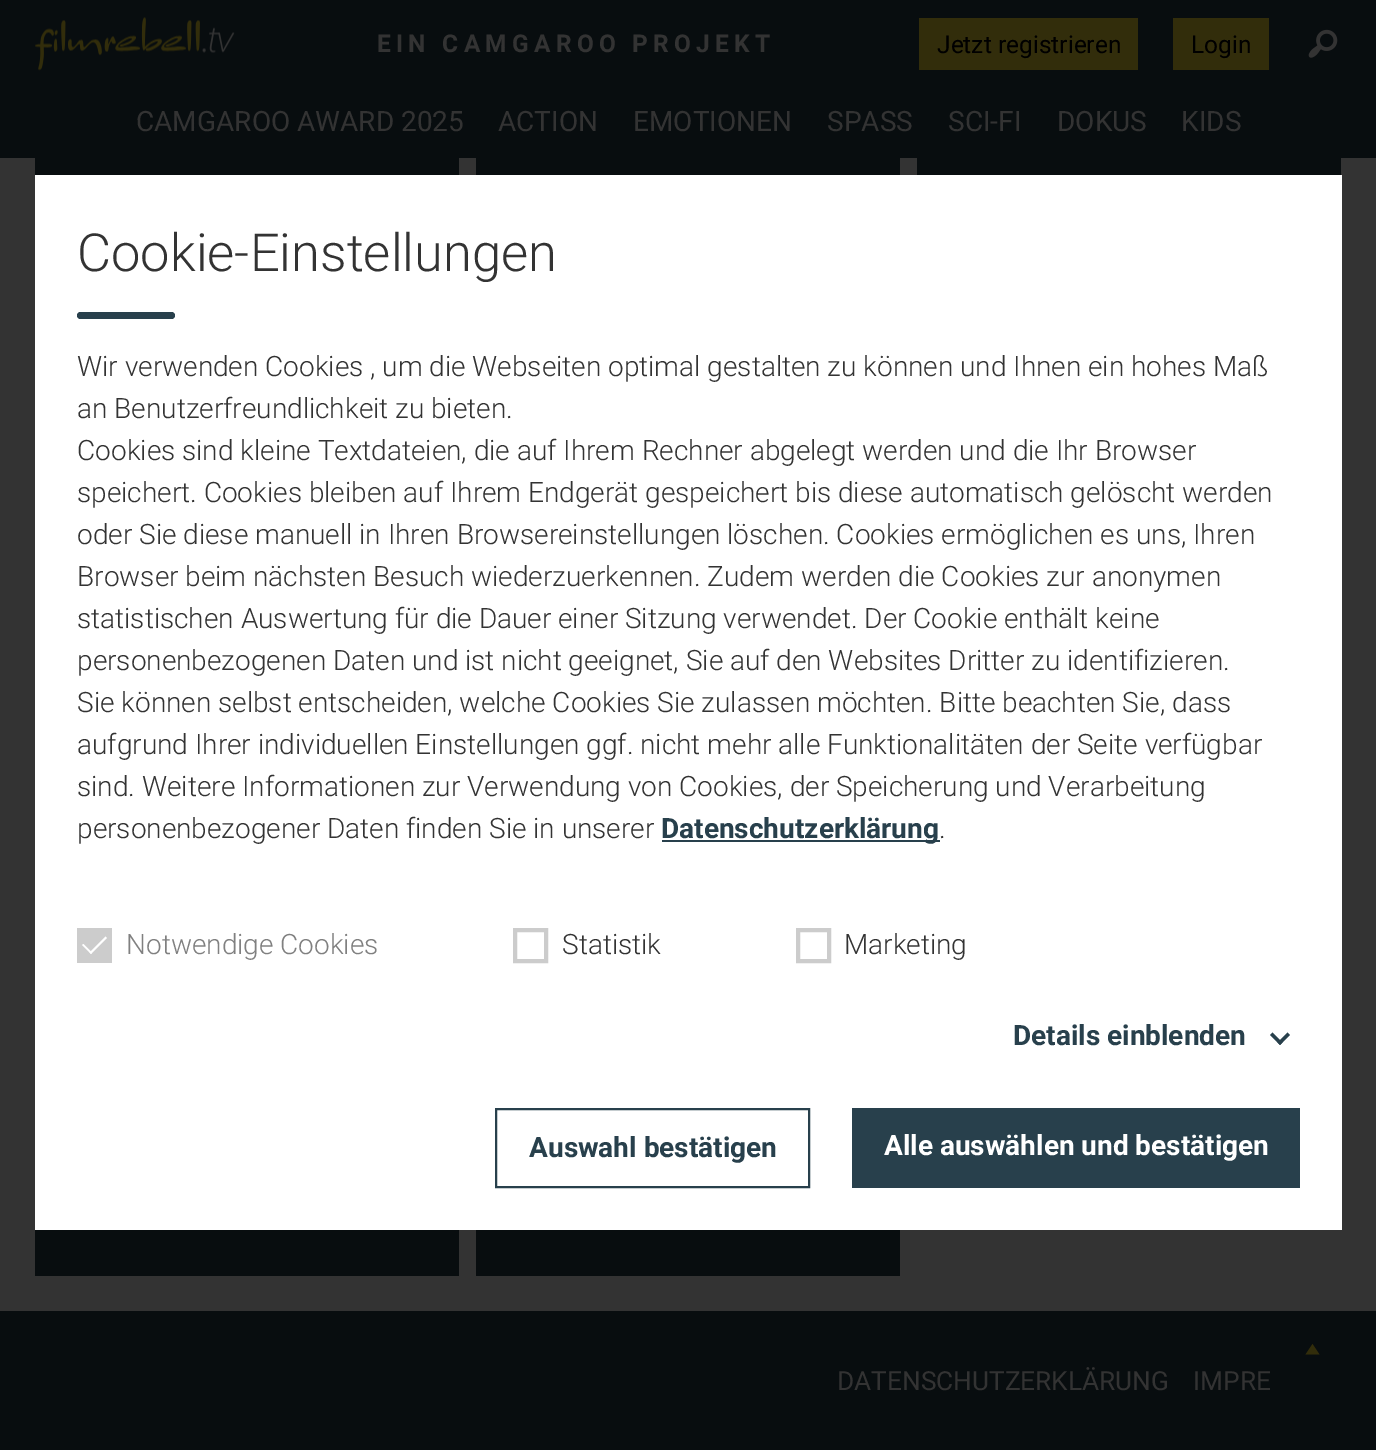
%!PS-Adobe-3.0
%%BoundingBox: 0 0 1376 1450
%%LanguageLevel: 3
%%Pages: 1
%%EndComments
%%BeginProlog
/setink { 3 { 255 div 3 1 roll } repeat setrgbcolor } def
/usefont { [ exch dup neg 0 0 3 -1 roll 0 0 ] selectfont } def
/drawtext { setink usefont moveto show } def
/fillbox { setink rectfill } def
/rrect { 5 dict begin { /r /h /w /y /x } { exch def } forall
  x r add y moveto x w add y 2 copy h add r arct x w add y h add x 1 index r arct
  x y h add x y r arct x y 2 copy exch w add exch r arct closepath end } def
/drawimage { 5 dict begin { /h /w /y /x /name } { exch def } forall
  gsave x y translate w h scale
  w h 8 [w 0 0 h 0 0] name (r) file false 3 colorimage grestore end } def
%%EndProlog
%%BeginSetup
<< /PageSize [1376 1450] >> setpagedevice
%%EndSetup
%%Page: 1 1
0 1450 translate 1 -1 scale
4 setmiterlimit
0 0 1376 1450 51 51 51 fillbox
0 0 1376 158 8 13 15 fillbox
(assets/img1.rgb) 35 17 200 54 drawimage
/Roboto-Bold 24.5 usefont
51 51 51 setink
377 52 moveto 5.25 0 (EIN CAMGAROO PROJEKT) ashow
919 18 219 52 50 45 11 fillbox
(Jetzt registrieren) 937 53 /Roboto-Regular 24.5 0 0 0 drawtext
1173 18 96 52 50 45 11 fillbox
(Login) 1191 53 /Roboto-Regular 24.5 0 0 0 drawtext
(assets/img2.rgb) 1308 29 30 29 drawimage
(CAMGAROO AWARD 2025) 136 131 /Roboto-Regular 28 51 51 51 drawtext
(ACTION) 498 131 /Roboto-Regular 28 51 51 51 drawtext
(EMOTIONEN) 633 131 /Roboto-Regular 28 51 51 51 drawtext
(SPASS) 827 131 /Roboto-Regular 28 51 51 51 drawtext
(SCI-FI) 948 131 /Roboto-Regular 28 51 51 51 drawtext
(DOKUS) 1057 131 /Roboto-Regular 28 51 51 51 drawtext
(KIDS) 1181 131 /Roboto-Regular 28 51 51 51 drawtext
35 158 424 17 8 13 15 fillbox
476 158 424 17 8 13 15 fillbox
917 158 424 17 8 13 15 fillbox
35 1230 424 46 8 13 15 fillbox
476 1230 424 46 8 13 15 fillbox
0 1311 1376 139 8 13 15 fillbox
(DATENSCHUTZERKLÄRUNG) 837 1390 /Roboto-Regular 26.25 51 51 51 drawtext
(IMPRE) 1193 1390 /Roboto-Regular 26.25 51 51 51 drawtext
35 175 1307 1055 255 255 255 fillbox
(Cookie-Einstellungen) 77 271 /Roboto-Light 52.5 51 51 51 drawtext
40 64 76 setink
77 312 98 7 3.5 rrect fill
(Wir verwenden Cookies , um die Webseiten optimal gestalten zu können und Ihnen ein hohes Maß) 77 376 /Roboto-Light 28 51 51 51 drawtext
(an Benutzerfreundlichkeit zu bieten.) 77 418 /Roboto-Light 28 51 51 51 drawtext
(Cookies sind kleine Textdateien, die auf Ihrem Rechner abgelegt werden und die Ihr Browser) 77 460 /Roboto-Light 28 51 51 51 drawtext
(speichert. Cookies bleiben auf Ihrem Endgerät gespeichert bis diese automatisch gelöscht werden) 77 502 /Roboto-Light 28 51 51 51 drawtext
(oder Sie diese manuell in Ihren Browsereinstellungen löschen. Cookies ermöglichen es uns, Ihren) 77 544 /Roboto-Light 28 51 51 51 drawtext
(Browser beim nächsten Besuch wiederzuerkennen. Zudem werden die Cookies zur anonymen) 77 586 /Roboto-Light 28 51 51 51 drawtext
(statistischen Auswertung für die Dauer einer Sitzung verwendet. Der Cookie enthält keine) 77 628 /Roboto-Light 28 51 51 51 drawtext
(personenbezogenen Daten und ist nicht geeignet, Sie auf den Websites Dritter zu identifizieren.) 77 670 /Roboto-Light 28 51 51 51 drawtext
(Sie können selbst entscheiden, welche Cookies Sie zulassen möchten. Bitte beachten Sie, dass) 77 712 /Roboto-Light 28 51 51 51 drawtext
(aufgrund Ihrer individuellen Einstellungen ggf. nicht mehr alle Funktionalitäten der Seite verfügbar) 77 754 /Roboto-Light 28 51 51 51 drawtext
(sind. Weitere Informationen zur Verwendung von Cookies, der Speicherung und Verarbeitung) 77 796 /Roboto-Light 28 51 51 51 drawtext
(personenbezogener Daten finden Sie in unserer) 77 838 /Roboto-Light 28 51 51 51 drawtext
662 840 278 2 40 64 76 fillbox
(Datenschutzerklärung) 661 838 /Roboto-Bold 28 40 64 76 drawtext
(.) 939 838 /Roboto-Light 28 51 51 51 drawtext
77 928 35 35 204 204 204 fillbox
255 255 255 setink
105.5 936.5 moveto 107 938 lineto 91 954 lineto 89.5 952.5 lineto closepath fill
83.5 944 moveto 92 952.5 lineto 91 954 lineto 82 945 lineto closepath fill
(Notwendige Cookies) 126 954 /Roboto-Light 28 128 128 128 drawtext
204 204 204 setink
4 setlinewidth
515 930 31 31 rectstroke
(Statistik) 562 954 /Roboto-Light 28 51 51 51 drawtext
204 204 204 setink
798 930 31 31 rectstroke
(Marketing) 844 954 /Roboto-Light 28 51 51 51 drawtext
(Details einblenden) 1013 1045 /Roboto-Bold 28 40 64 76 drawtext
1290 1035 moveto 1280 1045 lineto 1277.5 1042.5 lineto 1287.5 1032.5 lineto closepath fill
1282.5 1042.5 moveto 1280 1045 lineto 1270 1035 lineto 1272.5 1032.5 lineto closepath fill
2 setlinewidth
496 1109 313 78 rectstroke
(Auswahl bestätigen) 529 1157 /Roboto-Bold 28 40 64 76 drawtext
852 1108 448 80 40 64 76 fillbox
(Alle auswählen und bestätigen) 884 1155 /Roboto-Bold 28 255 255 255 drawtext
50 45 11 setink
1312.5 1344 moveto 1305.5 1354.5 lineto 1319.5 1354.5 lineto closepath fill
showpage
%%EOF
